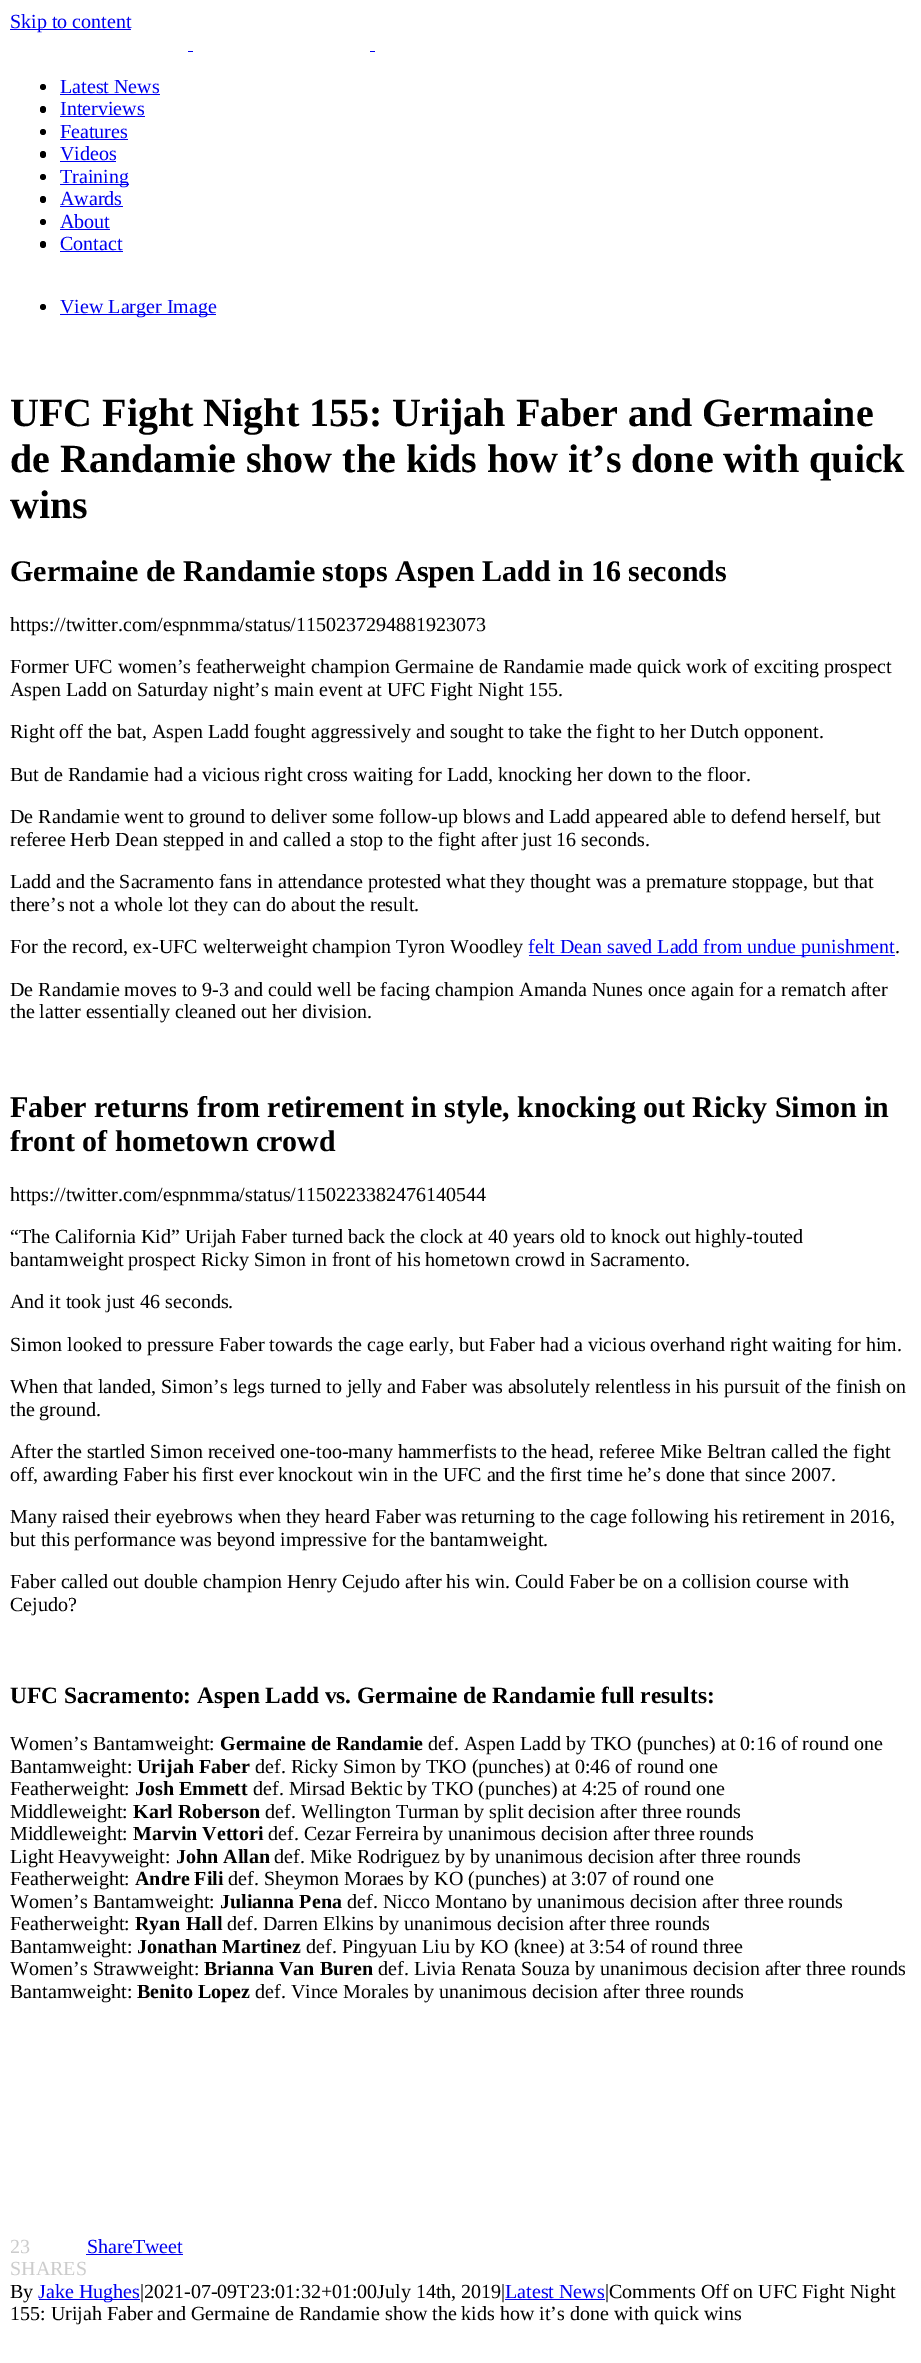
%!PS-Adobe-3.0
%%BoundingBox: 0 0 921 2363
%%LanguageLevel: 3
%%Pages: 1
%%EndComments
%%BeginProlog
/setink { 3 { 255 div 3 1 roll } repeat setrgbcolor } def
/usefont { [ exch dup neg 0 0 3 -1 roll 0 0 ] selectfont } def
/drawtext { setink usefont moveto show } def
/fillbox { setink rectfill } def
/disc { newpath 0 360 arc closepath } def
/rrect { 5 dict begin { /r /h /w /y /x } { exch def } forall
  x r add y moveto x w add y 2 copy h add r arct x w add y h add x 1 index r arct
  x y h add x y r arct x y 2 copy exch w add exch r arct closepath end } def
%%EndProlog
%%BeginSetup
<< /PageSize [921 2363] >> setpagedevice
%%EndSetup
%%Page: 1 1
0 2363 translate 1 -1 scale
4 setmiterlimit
0 0 921 2363 255 255 255 fillbox
10 29 121 1 0 0 238 fillbox
(Skip to content) 10 28 /LiberationSerif-Regular 20 0 0 238 drawtext
188 51 5 1 0 0 238 fillbox
370 51 5 1 0 0 238 fillbox
0 0 0 setink
43 87 3 disc fill
(Latest News) 60 93 /LiberationSerif-Regular 20 0 0 238 drawtext
60 94 100 1 0 0 238 fillbox
0 0 0 setink
40 106 6 7 3 rrect fill
(Interviews) 60 115 /LiberationSerif-Regular 20 0 0 238 drawtext
60 116 85 1 0 0 238 fillbox
0 0 0 setink
43 132 3 disc fill
(Features) 60 138 /LiberationSerif-Regular 20 0 0 238 drawtext
60 139 68 1 0 0 238 fillbox
0 0 0 setink
40 151 6 7 3 rrect fill
(Videos) 60 160 /LiberationSerif-Regular 20 0 0 238 drawtext
60 161 56 1 0 0 238 fillbox
0 0 0 setink
43 177 3 disc fill
60 184 69 1 0 0 238 fillbox
(Training) 60 183 /LiberationSerif-Regular 20 0 0 238 drawtext
0 0 0 setink
40 196 6 7 3 rrect fill
(Awards) 60 205 /LiberationSerif-Regular 20 0 0 238 drawtext
60 206 63 1 0 0 238 fillbox
0 0 0 setink
43 222 3 disc fill
(About) 60 228 /LiberationSerif-Regular 20 0 0 238 drawtext
60 229 50 1 0 0 238 fillbox
0 0 0 setink
40 241 6 7 3 rrect fill
(Contact) 60 250 /LiberationSerif-Regular 20 0 0 238 drawtext
60 251 63 1 0 0 238 fillbox
0 0 0 setink
43 307 3 disc fill
60 314 156 1 0 0 238 fillbox
(View Larger Image) 60 313 /LiberationSerif-Regular 20 0 0 238 drawtext
(UFC Fight Night 155: Urijah Faber and Germaine) 10 426 /LiberationSerif-Bold 40 0 0 0 drawtext
(de Randamie show the kids how it’s done with quick) 10 472 /LiberationSerif-Bold 40 0 0 0 drawtext
(wins) 10 518 /LiberationSerif-Bold 40 0 0 0 drawtext
(Germaine de Randamie stops Aspen Ladd in 16 seconds) 10 581 /LiberationSerif-Bold 30 0 0 0 drawtext
(https://twitter.com/espnmma/status/1150237294881923073) 10 631 /LiberationSerif-Regular 20 0 0 0 drawtext
(Former UFC women’s featherweight champion Germaine de Randamie made quick work of exciting prospect) 10 673 /LiberationSerif-Regular 20 0 0 0 drawtext
(Aspen Ladd on Saturday night’s main event at UFC Fight Night 155.) 10 696 /LiberationSerif-Regular 20 0 0 0 drawtext
(Right off the bat, Aspen Ladd fought aggressively and sought to take the fight to her Dutch opponent.) 10 738 /LiberationSerif-Regular 20 0 0 0 drawtext
(But de Randamie had a vicious right cross waiting for Ladd, knocking her down to the floor.) 10 781 /LiberationSerif-Regular 20 0 0 0 drawtext
(De Randamie went to ground to deliver some follow-up blows and Ladd appeared able to defend herself, but) 10 823 /LiberationSerif-Regular 20 0 0 0 drawtext
(referee Herb Dean stepped in and called a stop to the fight after just 16 seconds.) 10 846 /LiberationSerif-Regular 20 0 0 0 drawtext
(Ladd and the Sacramento fans in attendance protested what they thought was a premature stoppage, but that) 10 888 /LiberationSerif-Regular 20 0 0 0 drawtext
(there’s not a whole lot they can do about the result.) 10 911 /LiberationSerif-Regular 20 0 0 0 drawtext
(For the record, ex-UFC welterweight champion Tyron Woodley) 10 953 /LiberationSerif-Regular 20 0 0 0 drawtext
529 955 366 1 0 0 238 fillbox
(felt Dean saved Ladd from undue punishment) 528 953 /LiberationSerif-Regular 20 0 0 238 drawtext
(.) 895 953 /LiberationSerif-Regular 20 0 0 0 drawtext
(De Randamie moves to 9-3 and could well be facing champion Amanda Nunes once again for a rematch after) 10 996 /LiberationSerif-Regular 20 0 0 0 drawtext
(the latter essentially cleaned out her division.) 10 1018 /LiberationSerif-Regular 20 0 0 0 drawtext
(Faber returns from retirement in style, knocking out Ricky Simon in) 10 1117 /LiberationSerif-Bold 30 0 0 0 drawtext
(front of hometown crowd) 10 1151 /LiberationSerif-Bold 30 0 0 0 drawtext
(https://twitter.com/espnmma/status/1150223382476140544) 10 1201 /LiberationSerif-Regular 20 0 0 0 drawtext
(“The California Kid” Urijah Faber turned back the clock at 40 years old to knock out highly-touted) 10 1243 /LiberationSerif-Regular 20 0 0 0 drawtext
(bantamweight prospect Ricky Simon in front of his hometown crowd in Sacramento.) 10 1266 /LiberationSerif-Regular 20 0 0 0 drawtext
(And it took just 46 seconds.) 10 1308 /LiberationSerif-Regular 20 0 0 0 drawtext
(Simon looked to pressure Faber towards the cage early, but Faber had a vicious overhand right waiting for him.) 10 1351 /LiberationSerif-Regular 20 0 0 0 drawtext
(When that landed, Simon’s legs turned to jelly and Faber was absolutely relentless in his pursuit of the finish on) 10 1393 /LiberationSerif-Regular 20 0 0 0 drawtext
(the ground.) 10 1416 /LiberationSerif-Regular 20 0 0 0 drawtext
(After the startled Simon received one-too-many hammerfists to the head, referee Mike Beltran called the fight) 10 1458 /LiberationSerif-Regular 20 0 0 0 drawtext
(off, awarding Faber his first ever knockout win in the UFC and the first time he’s done that since 2007.) 10 1481 /LiberationSerif-Regular 20 0 0 0 drawtext
(Many raised their eyebrows when they heard Faber was returning to the cage following his retirement in 2016,) 10 1523 /LiberationSerif-Regular 20 0 0 0 drawtext
(but this performance was beyond impressive for the bantamweight.) 10 1546 /LiberationSerif-Regular 20 0 0 0 drawtext
(Faber called out double champion Henry Cejudo after his win. Could Faber be on a collision course with) 10 1588 /LiberationSerif-Regular 20 0 0 0 drawtext
(Cejudo?) 10 1611 /LiberationSerif-Regular 20 0 0 0 drawtext
(UFC Sacramento: Aspen Ladd vs. Germaine de Randamie full results:) 10 1703 /LiberationSerif-Bold 23.4 0 0 0 drawtext
(Women’s Bantamweight:) 10 1750 /LiberationSerif-Regular 20 0 0 0 drawtext
(Germaine de Randamie) 220 1750 /LiberationSerif-Bold 20 0 0 0 drawtext
(def. Aspen Ladd by TKO \(punches\) at 0:16 of round one) 428 1750 /LiberationSerif-Regular 20 0 0 0 drawtext
(Bantamweight:) 10 1773 /LiberationSerif-Regular 20 0 0 0 drawtext
(Urijah Faber) 137 1773 /LiberationSerif-Bold 20 0 0 0 drawtext
(def. Ricky Simon by TKO \(punches\) at 0:46 of round one) 255 1773 /LiberationSerif-Regular 20 0 0 0 drawtext
(Featherweight:) 10 1795 /LiberationSerif-Regular 20 0 0 0 drawtext
(Josh Emmett) 135 1795 /LiberationSerif-Bold 20 0 0 0 drawtext
(def. Mirsad Bektic by TKO \(punches\) at 4:25 of round one) 253 1795 /LiberationSerif-Regular 20 0 0 0 drawtext
(Middleweight:) 10 1818 /LiberationSerif-Regular 20 0 0 0 drawtext
(Karl Roberson) 133 1818 /LiberationSerif-Bold 20 0 0 0 drawtext
(def. Wellington Turman by split decision after three rounds) 265 1818 /LiberationSerif-Regular 20 0 0 0 drawtext
(Middleweight:) 10 1840 /LiberationSerif-Regular 20 0 0 0 drawtext
(Marvin Vettori) 133 1840 /LiberationSerif-Bold 20 0 0 0 drawtext
(def. Cezar Ferreira by unanimous decision after three rounds) 268 1840 /LiberationSerif-Regular 20 0 0 0 drawtext
(Light Heavyweight:) 10 1863 /LiberationSerif-Regular 20 0 0 0 drawtext
(John Allan) 176 1863 /LiberationSerif-Bold 20 0 0 0 drawtext
(def. Mike Rodriguez by by unanimous decision after three rounds) 274 1863 /LiberationSerif-Regular 20 0 0 0 drawtext
(Featherweight:) 10 1885 /LiberationSerif-Regular 20 0 0 0 drawtext
(Andre Fili) 135 1885 /LiberationSerif-Bold 20 0 0 0 drawtext
(def. Sheymon Moraes by KO \(punches\) at 3:07 of round one) 228 1885 /LiberationSerif-Regular 20 0 0 0 drawtext
(Women’s Bantamweight:) 10 1908 /LiberationSerif-Regular 20 0 0 0 drawtext
(Julianna Pena) 220 1908 /LiberationSerif-Bold 20 0 0 0 drawtext
(def. Nicco Montano by unanimous decision after three rounds) 347 1908 /LiberationSerif-Regular 20 0 0 0 drawtext
(Featherweight:) 10 1930 /LiberationSerif-Regular 20 0 0 0 drawtext
(Ryan Hall) 135 1930 /LiberationSerif-Bold 20 0 0 0 drawtext
(def. Darren Elkins by unanimous decision after three rounds) 227 1930 /LiberationSerif-Regular 20 0 0 0 drawtext
(Bantamweight:) 10 1953 /LiberationSerif-Regular 20 0 0 0 drawtext
(Jonathan Martinez) 137 1953 /LiberationSerif-Bold 20 0 0 0 drawtext
(def. Pingyuan Liu by KO \(knee\) at 3:54 of round three) 306 1953 /LiberationSerif-Regular 20 0 0 0 drawtext
(Women’s Strawweight:) 10 1975 /LiberationSerif-Regular 20 0 0 0 drawtext
(Brianna Van Buren) 204 1975 /LiberationSerif-Bold 20 0 0 0 drawtext
(def. Livia Renata Souza by unanimous decision after three rounds) 378 1975 /LiberationSerif-Regular 20 0 0 0 drawtext
(Bantamweight:) 10 1998 /LiberationSerif-Regular 20 0 0 0 drawtext
(Benito Lopez) 137 1998 /LiberationSerif-Bold 20 0 0 0 drawtext
(def. Vince Morales by unanimous decision after three rounds) 255 1998 /LiberationSerif-Regular 20 0 0 0 drawtext
(23) 10 2253 /LiberationSerif-Regular 20 204 204 204 drawtext
(SHARES) 10 2275 /LiberationSerif-Regular 20 204 204 204 drawtext
(ShareTweet) 87 2253 /LiberationSerif-Regular 20 0 0 238 drawtext
86 2254 97 1 0 0 238 fillbox
(By) 10 2298 /LiberationSerif-Regular 20 0 0 0 drawtext
39 2299 101 1 0 0 238 fillbox
(Jake Hughes) 38 2298 /LiberationSerif-Regular 20 0 0 238 drawtext
(|2021-07-09T23:01:32+01:00July 14th, 2019|) 140 2298 /LiberationSerif-Regular 20 0 0 0 drawtext
(Latest News) 505 2298 /LiberationSerif-Regular 20 0 0 238 drawtext
505 2299 100 1 0 0 238 fillbox
(|Comments Off on UFC Fight Night) 605 2298 /LiberationSerif-Regular 20 0 0 0 drawtext
(155: Urijah Faber and Germaine de Randamie show the kids how it’s done with quick wins) 10 2320 /LiberationSerif-Regular 20 0 0 0 drawtext
showpage
%%EOF
